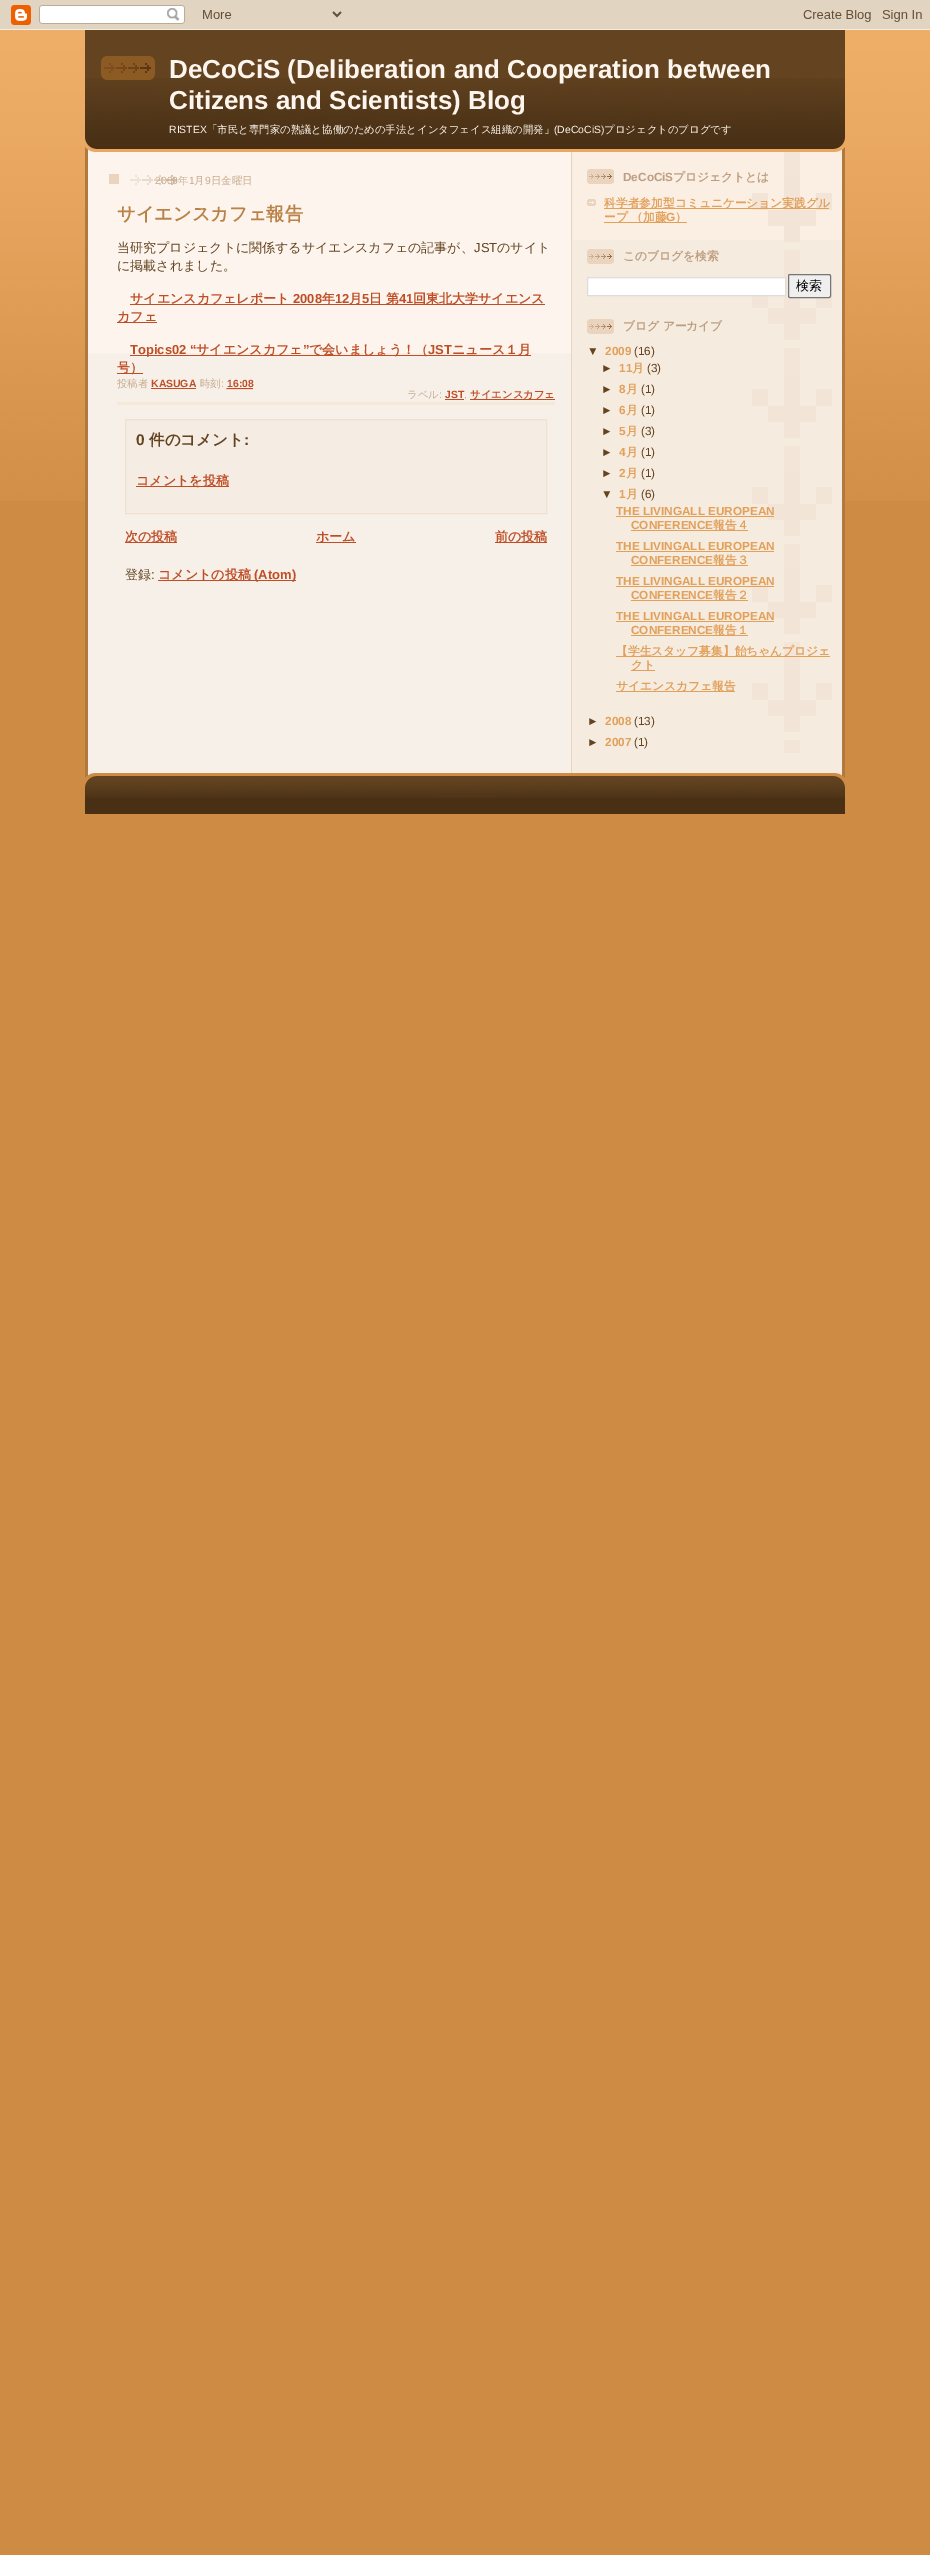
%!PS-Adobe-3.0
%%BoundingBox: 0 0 930 2555
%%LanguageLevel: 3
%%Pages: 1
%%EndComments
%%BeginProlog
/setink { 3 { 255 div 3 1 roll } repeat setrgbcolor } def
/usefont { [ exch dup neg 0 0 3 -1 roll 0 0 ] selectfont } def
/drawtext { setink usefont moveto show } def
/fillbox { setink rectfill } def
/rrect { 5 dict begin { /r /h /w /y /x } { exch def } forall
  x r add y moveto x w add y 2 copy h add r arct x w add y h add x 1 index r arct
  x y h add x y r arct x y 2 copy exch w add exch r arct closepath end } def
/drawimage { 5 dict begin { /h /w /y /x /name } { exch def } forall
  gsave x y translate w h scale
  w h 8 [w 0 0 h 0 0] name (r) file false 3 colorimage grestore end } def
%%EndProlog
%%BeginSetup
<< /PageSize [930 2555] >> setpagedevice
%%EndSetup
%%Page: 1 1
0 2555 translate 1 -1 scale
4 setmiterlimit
0 0 930 2555 206 139 67 fillbox
(assets/img1.rgb) 0 30 930 471 drawimage
(assets/img2.rgb) 0 0 930 30 drawimage
(assets/img3.rgb) 85 137 760 15 drawimage
85 30 760 48 99 67 32 fillbox
(assets/img4.rgb) 85 78 760 59 drawimage
(assets/img5.rgb) 101 56 54 24 drawimage
(DeCoCiS \(Deliberation and Cooperation between) 169 78 /LiberationSans-Bold 26 254 246 238 drawtext
(Citizens and Scientists\) Blog) 169 109 /LiberationSans-Bold 26 254 246 238 drawtext
(RISTEX) 169 133 /LiberationSans-Regular 10.4 254 246 238 drawtext
(「市民と専門家の熟議と協働のための手法とインタフェイス組織の開発」) 207 133 /WenQuanYiZenHei-Medium 10.4 254 246 238 drawtext
(\(DeCoCiS\)) 554 133 /LiberationSans-Regular 10.4 254 246 238 drawtext
(プロジェクトのブログです) 604 133 /WenQuanYiZenHei-Medium 10.4 254 246 238 drawtext
(assets/img6.rgb) 85 152 760 621 drawimage
88 152 483 201 253 245 237 fillbox
109 174 10 10 235 212 189 fillbox
(assets/img7.rgb) 130 175 47 10 drawimage
(年) 178 184 /WenQuanYiZenHei-Medium 10.4 200 171 143 drawtext
(日金曜日) 211 184 /WenQuanYiZenHei-Medium 10.4 200 171 143 drawtext
(2009) 155 184 /LiberationSans-Regular 10.4 200 171 143 drawtext
(1) 189 184 /LiberationSans-Regular 10.4 200 171 143 drawtext
(月) 194 184 /WenQuanYiZenHei-Medium 10.4 200 171 143 drawtext
(9) 205 184 /LiberationSans-Regular 10.4 200 171 143 drawtext
117 402 438 3 247 232 216 fillbox
(サイエンスカフェ報告) 117 220 /WenQuanYiZenHei-Bold 18.25 186 130 71 drawtext
(当研究プロジェクトに関係するサイエンスカフェの記事が、) 117 252 /WenQuanYiZenHei-Medium 13 99 67 32 drawtext
(JST) 474 252 /LiberationSans-Regular 13 99 67 32 drawtext
(のサイト) 497 252 /WenQuanYiZenHei-Medium 13 99 67 32 drawtext
(に掲載されました。) 117 270 /WenQuanYiZenHei-Medium 13 99 67 32 drawtext
130 304 415 1 191 78 39 fillbox
(サイエンスカフェレポート) 130 303 /WenQuanYiZenHei-Bold 13 191 78 39 drawtext
(2008) 293 303 /LiberationSans-Bold 13 191 78 39 drawtext
(年) 322 303 /WenQuanYiZenHei-Bold 13 191 78 39 drawtext
(12) 335 303 /LiberationSans-Bold 13 191 78 39 drawtext
(月) 349 303 /WenQuanYiZenHei-Bold 13 191 78 39 drawtext
(5) 362 303 /LiberationSans-Bold 13 191 78 39 drawtext
(日 第) 369 303 /WenQuanYiZenHei-Bold 13 191 78 39 drawtext
(41) 399 303 /LiberationSans-Bold 13 191 78 39 drawtext
(回東北大学サイエンス) 413 303 /WenQuanYiZenHei-Bold 13 191 78 39 drawtext
117 322 40 1 191 78 39 fillbox
(カフェ) 117 321 /WenQuanYiZenHei-Bold 13 191 78 39 drawtext
130 355 401 1 191 78 39 fillbox
(Topics02 “) 130 354 /LiberationSans-Bold 13 191 78 39 drawtext
(サイエンスカフェ) 196 354 /WenQuanYiZenHei-Bold 13 191 78 39 drawtext
(”) 303 354 /LiberationSans-Bold 13 191 78 39 drawtext
(で会いましょう！（) 309 354 /WenQuanYiZenHei-Bold 13 191 78 39 drawtext
(JST) 428 354 /LiberationSans-Bold 13 191 78 39 drawtext
(ニュース１月) 452 354 /WenQuanYiZenHei-Bold 13 191 78 39 drawtext
117 373 26 1 191 78 39 fillbox
(号）) 117 372 /WenQuanYiZenHei-Bold 13 191 78 39 drawtext
(投稿者) 117 387 /WenQuanYiZenHei-Medium 10.4 200 171 143 drawtext
(KASUGA) 151 387 /LiberationSans-Bold 10.4 191 78 39 drawtext
151 388 45 1 191 78 39 fillbox
(時刻) 200 387 /WenQuanYiZenHei-Medium 10.4 200 171 143 drawtext
(:) 221 387 /LiberationSans-Regular 10.4 200 171 143 drawtext
(16:08) 227 387 /LiberationSans-Bold 10.4 191 78 39 drawtext
[1 1] 0 setdash
226.5 388.5 moveto 253 388.5 lineto stroke
227 388 26 1 191 78 39 fillbox
(ラベル) 407 398 /WenQuanYiZenHei-Medium 10.4 200 171 143 drawtext
(:) 439 398 /LiberationSans-Regular 10.4 200 171 143 drawtext
(JST) 445 398 /LiberationSans-Bold 10.4 191 78 39 drawtext
(,) 464 398 /LiberationSans-Regular 10.4 200 171 143 drawtext
445 399 19 1 191 78 39 fillbox
470 399 85 1 191 78 39 fillbox
(サイエンスカフェ) 470 398 /WenQuanYiZenHei-Bold 10.4 191 78 39 drawtext
245 237 228 setink
125.5 419.5 moveto 546.5 419.5 lineto 546.5 513.5 lineto 125.5 513.5 lineto closepath gsave fill grestore
240 224 206 setink
[] 0 setdash
stroke
(0) 136 445 /LiberationSans-Bold 15.5 99 67 32 drawtext
(件のコメント) 149 445 /WenQuanYiZenHei-Bold 15.5 99 67 32 drawtext
(:) 244 445 /LiberationSans-Bold 15.5 99 67 32 drawtext
136 486 93 1 191 78 39 fillbox
(コメントを投稿) 136 485 /WenQuanYiZenHei-Bold 13 191 78 39 drawtext
125 542 52 1 191 78 39 fillbox
(次の投稿) 125 541 /WenQuanYiZenHei-Bold 13 191 78 39 drawtext
316 542 40 1 191 78 39 fillbox
(ホーム) 316 541 /WenQuanYiZenHei-Bold 13 191 78 39 drawtext
495 542 52 1 191 78 39 fillbox
(前の投稿) 495 541 /WenQuanYiZenHei-Bold 13 191 78 39 drawtext
(登録) 125 579 /WenQuanYiZenHei-Medium 13 99 67 32 drawtext
(:) 151 579 /LiberationSans-Regular 13 99 67 32 drawtext
158 580 138 1 191 78 39 fillbox
(コメントの投稿) 158 579 /WenQuanYiZenHei-Bold 13 191 78 39 drawtext
(\(Atom\)) 254 579 /LiberationSans-Bold 13 191 78 39 drawtext
573 152 269 88 251 239 227 fillbox
(assets/img8.rgb) 752 152 80 601 drawimage
(assets/img9.rgb) 587 169 27 15 drawimage
(DeCoCiS) 623 181 /LiberationSans-Bold 11.75 189 158 128 drawtext
(プロジェクトとは) 673 181 /WenQuanYiZenHei-Bold 11.75 189 158 128 drawtext
(assets/img10.rgb) 587 199 9 7 drawimage
604 208 225 1 226 160 89 fillbox
(科学者参加型コミュニケーション実践グル) 604 207 /WenQuanYiZenHei-Bold 11.75 226 160 89 drawtext
604 222 83 1 226 160 89 fillbox
(ープ （加藤) 604 221 /WenQuanYiZenHei-Bold 11.75 226 160 89 drawtext
(G) 666 221 /LiberationSans-Bold 11.75 226 160 89 drawtext
(）) 675 221 /WenQuanYiZenHei-Bold 11.75 226 160 89 drawtext
(assets/img11.rgb) 587 249 27 15 drawimage
(このブログを検索) 623 260 /WenQuanYiZenHei-Bold 11.75 189 158 128 drawtext
255 255 255 setink
587.5 277.5 moveto 785.5 277.5 lineto 785.5 295.5 lineto 587.5 295.5 lineto closepath gsave fill grestore
221 221 221 setink
stroke
239 239 239 setink
788.5 274.5 42 23 1.5 rrect gsave fill grestore
118 118 118 setink
stroke
(検索) 796 290 /WenQuanYiZenHei-Medium 13 0 0 0 drawtext
(assets/img11.rgb) 587 319 27 15 drawimage
(ブログ アーカイブ) 623 330 /WenQuanYiZenHei-Bold 11.75 189 158 128 drawtext
(▼) 587 355 /LiberationSans-Bold 11.75 99 67 32 drawtext
(2009) 605 355 /LiberationSans-Bold 11.75 226 160 89 drawtext
(\(16\)) 634 355 /LiberationSans-Regular 11.75 99 67 32 drawtext
(►) 601 372 /LiberationSans-Bold 11.75 99 67 32 drawtext
(11) 619 372 /LiberationSans-Bold 11.75 226 160 89 drawtext
(月) 632 372 /WenQuanYiZenHei-Bold 11.75 226 160 89 drawtext
(\(3\)) 647 372 /LiberationSans-Regular 11.75 99 67 32 drawtext
(►) 601 393 /LiberationSans-Bold 11.75 99 67 32 drawtext
(8) 619 393 /LiberationSans-Bold 11.75 226 160 89 drawtext
(月) 626 393 /WenQuanYiZenHei-Bold 11.75 226 160 89 drawtext
(\(1\)) 641 393 /LiberationSans-Regular 11.75 99 67 32 drawtext
(►) 601 414 /LiberationSans-Bold 11.75 99 67 32 drawtext
(6) 619 414 /LiberationSans-Bold 11.75 226 160 89 drawtext
(月) 626 414 /WenQuanYiZenHei-Bold 11.75 226 160 89 drawtext
(\(1\)) 641 414 /LiberationSans-Regular 11.75 99 67 32 drawtext
(►) 601 435 /LiberationSans-Bold 11.75 99 67 32 drawtext
(5) 619 435 /LiberationSans-Bold 11.75 226 160 89 drawtext
(月) 626 435 /WenQuanYiZenHei-Bold 11.75 226 160 89 drawtext
(\(3\)) 641 435 /LiberationSans-Regular 11.75 99 67 32 drawtext
(►) 601 456 /LiberationSans-Bold 11.75 99 67 32 drawtext
(4) 619 456 /LiberationSans-Bold 11.75 226 160 89 drawtext
(月) 626 456 /WenQuanYiZenHei-Bold 11.75 226 160 89 drawtext
(\(1\)) 641 456 /LiberationSans-Regular 11.75 99 67 32 drawtext
(►) 601 477 /LiberationSans-Bold 11.75 99 67 32 drawtext
(2) 619 477 /LiberationSans-Bold 11.75 226 160 89 drawtext
(月) 626 477 /WenQuanYiZenHei-Bold 11.75 226 160 89 drawtext
(\(1\)) 641 477 /LiberationSans-Regular 11.75 99 67 32 drawtext
(▼) 601 498 /LiberationSans-Bold 11.75 99 67 32 drawtext
(1) 619 498 /LiberationSans-Bold 11.75 226 160 89 drawtext
(月) 626 498 /WenQuanYiZenHei-Bold 11.75 226 160 89 drawtext
(\(6\)) 641 498 /LiberationSans-Regular 11.75 99 67 32 drawtext
(THE LIVINGALL EUROPEAN) 616 515 /LiberationSans-Bold 11.75 226 160 89 drawtext
616 516 158 1 226 160 89 fillbox
(CONFERENCE) 631 529 /LiberationSans-Bold 11.75 226 160 89 drawtext
631 530 117 1 226 160 89 fillbox
(報告４) 713 529 /WenQuanYiZenHei-Bold 11.75 226 160 89 drawtext
(THE LIVINGALL EUROPEAN) 616 550 /LiberationSans-Bold 11.75 226 160 89 drawtext
616 551 158 1 226 160 89 fillbox
(CONFERENCE) 631 564 /LiberationSans-Bold 11.75 226 160 89 drawtext
631 565 117 1 226 160 89 fillbox
(報告３) 713 564 /WenQuanYiZenHei-Bold 11.75 226 160 89 drawtext
(THE LIVINGALL EUROPEAN) 616 585 /LiberationSans-Bold 11.75 226 160 89 drawtext
616 586 158 1 226 160 89 fillbox
(CONFERENCE) 631 599 /LiberationSans-Bold 11.75 226 160 89 drawtext
631 600 117 1 226 160 89 fillbox
(報告２) 713 599 /WenQuanYiZenHei-Bold 11.75 226 160 89 drawtext
(THE LIVINGALL EUROPEAN) 616 620 /LiberationSans-Bold 11.75 226 160 89 drawtext
616 621 158 1 226 160 89 fillbox
(CONFERENCE) 631 634 /LiberationSans-Bold 11.75 226 160 89 drawtext
631 635 117 1 226 160 89 fillbox
(報告１) 713 634 /WenQuanYiZenHei-Bold 11.75 226 160 89 drawtext
616 656 214 1 226 160 89 fillbox
(【学生スタッフ募集】飴ちゃんプロジェ) 616 655 /WenQuanYiZenHei-Bold 11.75 226 160 89 drawtext
631 670 24 1 226 160 89 fillbox
(クト) 631 669 /WenQuanYiZenHei-Bold 11.75 226 160 89 drawtext
616 691 119 1 226 160 89 fillbox
(サイエンスカフェ報告) 616 690 /WenQuanYiZenHei-Bold 11.75 226 160 89 drawtext
(►) 587 725 /LiberationSans-Bold 11.75 99 67 32 drawtext
(2008) 605 725 /LiberationSans-Bold 11.75 226 160 89 drawtext
(\(13\)) 634 725 /LiberationSans-Regular 11.75 99 67 32 drawtext
(►) 587 746 /LiberationSans-Bold 11.75 99 67 32 drawtext
(2007) 605 746 /LiberationSans-Bold 11.75 226 160 89 drawtext
(\(1\)) 634 746 /LiberationSans-Regular 11.75 99 67 32 drawtext
(assets/img12.rgb) 85 773 760 15 drawimage
85 798 760 16 73 48 21 fillbox
(assets/img13.rgb) 85 788 760 10 drawimage
showpage
%%EOF
